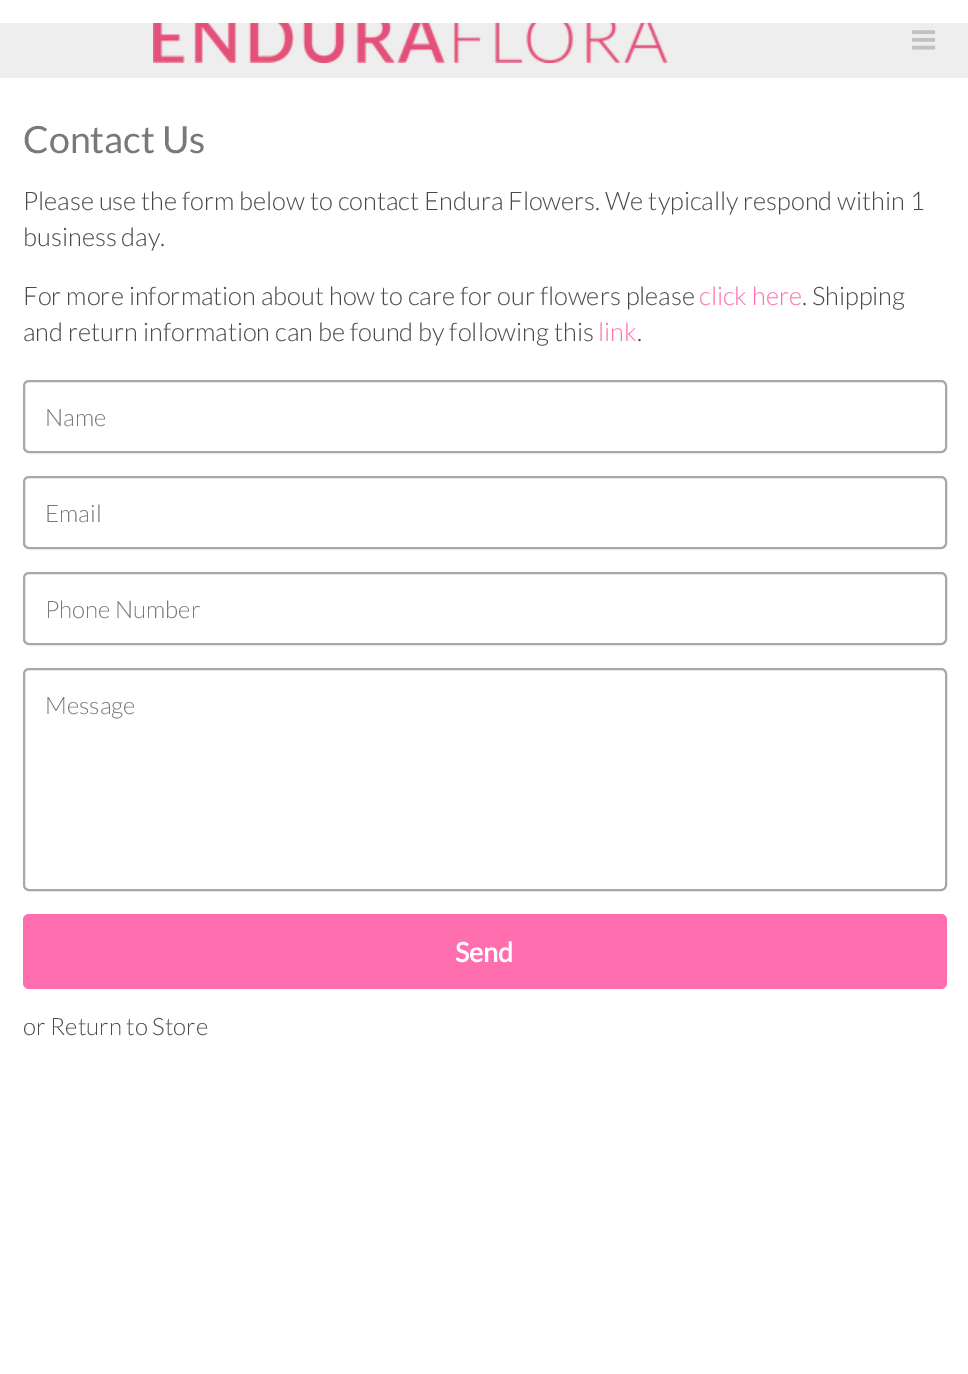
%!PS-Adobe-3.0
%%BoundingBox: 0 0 968 1374
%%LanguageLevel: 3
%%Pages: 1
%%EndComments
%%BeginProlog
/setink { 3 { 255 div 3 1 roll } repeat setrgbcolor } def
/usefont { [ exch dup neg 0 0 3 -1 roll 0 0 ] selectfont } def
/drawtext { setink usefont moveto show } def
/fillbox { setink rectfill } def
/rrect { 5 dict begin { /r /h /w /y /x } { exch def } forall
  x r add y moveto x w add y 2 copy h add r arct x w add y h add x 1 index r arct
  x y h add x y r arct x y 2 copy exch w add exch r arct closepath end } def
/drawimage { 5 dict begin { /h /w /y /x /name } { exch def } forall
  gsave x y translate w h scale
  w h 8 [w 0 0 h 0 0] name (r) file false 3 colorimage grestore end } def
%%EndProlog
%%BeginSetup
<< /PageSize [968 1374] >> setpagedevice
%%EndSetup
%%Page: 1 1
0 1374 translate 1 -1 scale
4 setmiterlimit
0 0 968 1374 255 255 255 fillbox
0 23 968 55 238 238 238 fillbox
(assets/img1.rgb) 153 23 515 40 drawimage
(assets/img2.rgb) 912 30 24 20 drawimage
(Contact Us) 23 153 /Lato-Regular 37.5 121 121 121 drawtext
(Please use the form below to contact Endura Flowers. We typically respond within 1) 23 210 /Lato-Light 25.5 73 73 73 drawtext
(business day.) 23 246 /Lato-Light 25.5 73 73 73 drawtext
(For more information about how to care for our flowers please) 23 305 /Lato-Light 25.5 73 73 73 drawtext
(click here) 699 305 /Lato-Light 25.5 255 110 174 drawtext
(. Shipping) 802 305 /Lato-Light 25.5 73 73 73 drawtext
(and return information can be found by following this) 23 341 /Lato-Light 25.5 73 73 73 drawtext
(link) 598 341 /Lato-Light 25.5 255 110 174 drawtext
(.) 637 341 /Lato-Light 25.5 73 73 73 drawtext
168 168 168 setink
2 setlinewidth
24 381 922 71 5 rrect stroke
(Name) 45 426 /Lato-Light 24 121 121 121 drawtext
168 168 168 setink
24 477 922 71 5 rrect stroke
(Email) 45 522 /Lato-Light 24 121 121 121 drawtext
168 168 168 setink
24 573 922 71 5 rrect stroke
(Phone Number) 45 618 /Lato-Light 24 121 121 121 drawtext
168 168 168 setink
24 669 922 221 5 rrect stroke
(Message) 45 714 /Lato-Light 24 121 121 121 drawtext
255 110 174 setink
23 914 924 75 6 rrect fill
(Send) 455 962 /Lato-Bold 27 255 255 255 drawtext
(or Return to Store) 23 1035 /Lato-Light 24 73 73 73 drawtext
showpage
%%EOF
